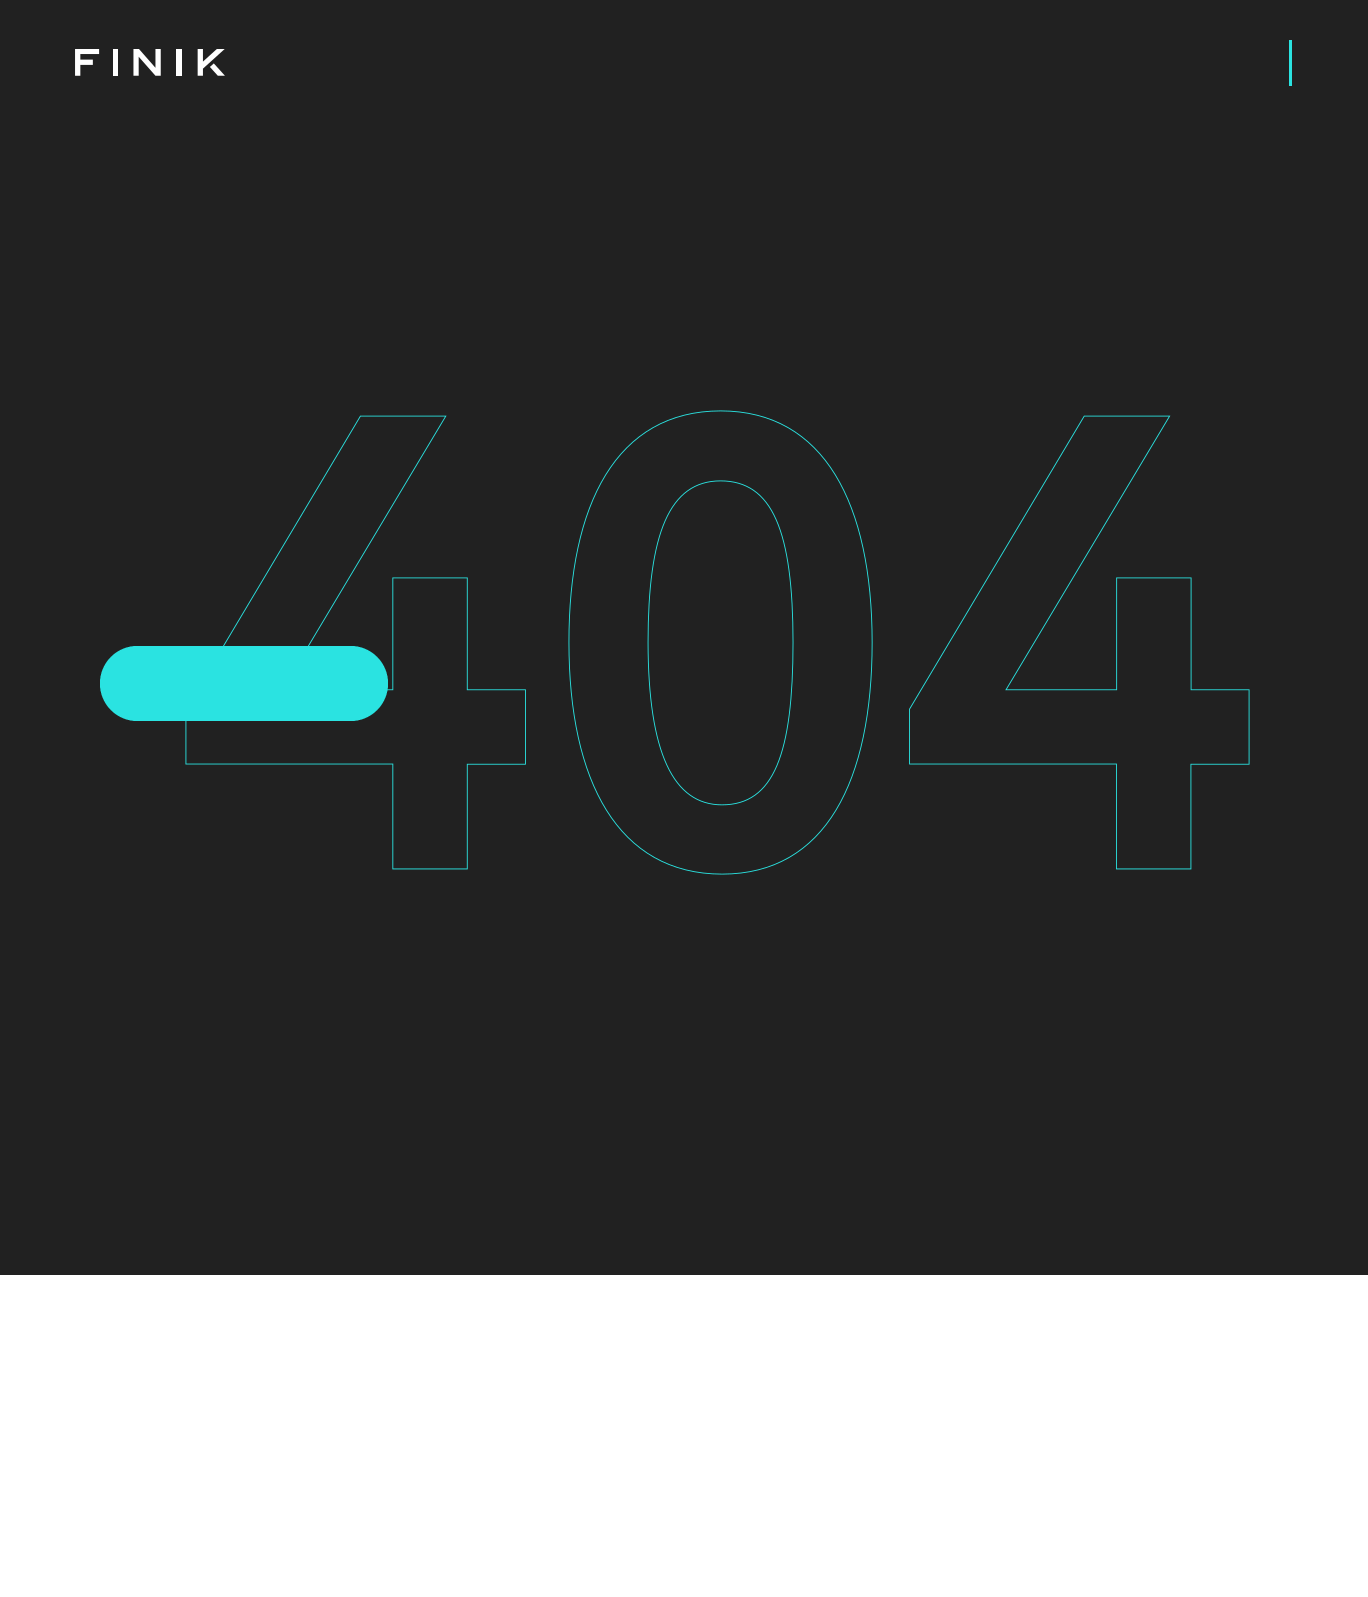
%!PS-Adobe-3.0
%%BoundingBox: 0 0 1368 1597
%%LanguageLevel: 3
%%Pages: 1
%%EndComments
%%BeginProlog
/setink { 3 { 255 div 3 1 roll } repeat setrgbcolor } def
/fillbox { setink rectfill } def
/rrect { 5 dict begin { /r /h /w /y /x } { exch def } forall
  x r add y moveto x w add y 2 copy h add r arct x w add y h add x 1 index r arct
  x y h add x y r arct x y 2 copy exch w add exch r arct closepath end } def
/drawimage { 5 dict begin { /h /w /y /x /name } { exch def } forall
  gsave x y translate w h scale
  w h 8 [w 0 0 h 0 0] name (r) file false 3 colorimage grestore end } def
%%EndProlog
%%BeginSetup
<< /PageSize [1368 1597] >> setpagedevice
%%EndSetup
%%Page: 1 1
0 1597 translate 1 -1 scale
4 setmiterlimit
0 0 1368 1597 255 255 255 fillbox
0 0 1368 1275 33 33 33 fillbox
(assets/img1.rgb) 75 49 150 27 drawimage
1289 40 3 46 42 227 225 fillbox
(assets/img2.rgb) 185 410 1065 465 drawimage
100 646 288 75 37.5 rrect fill
showpage
%%EOF
